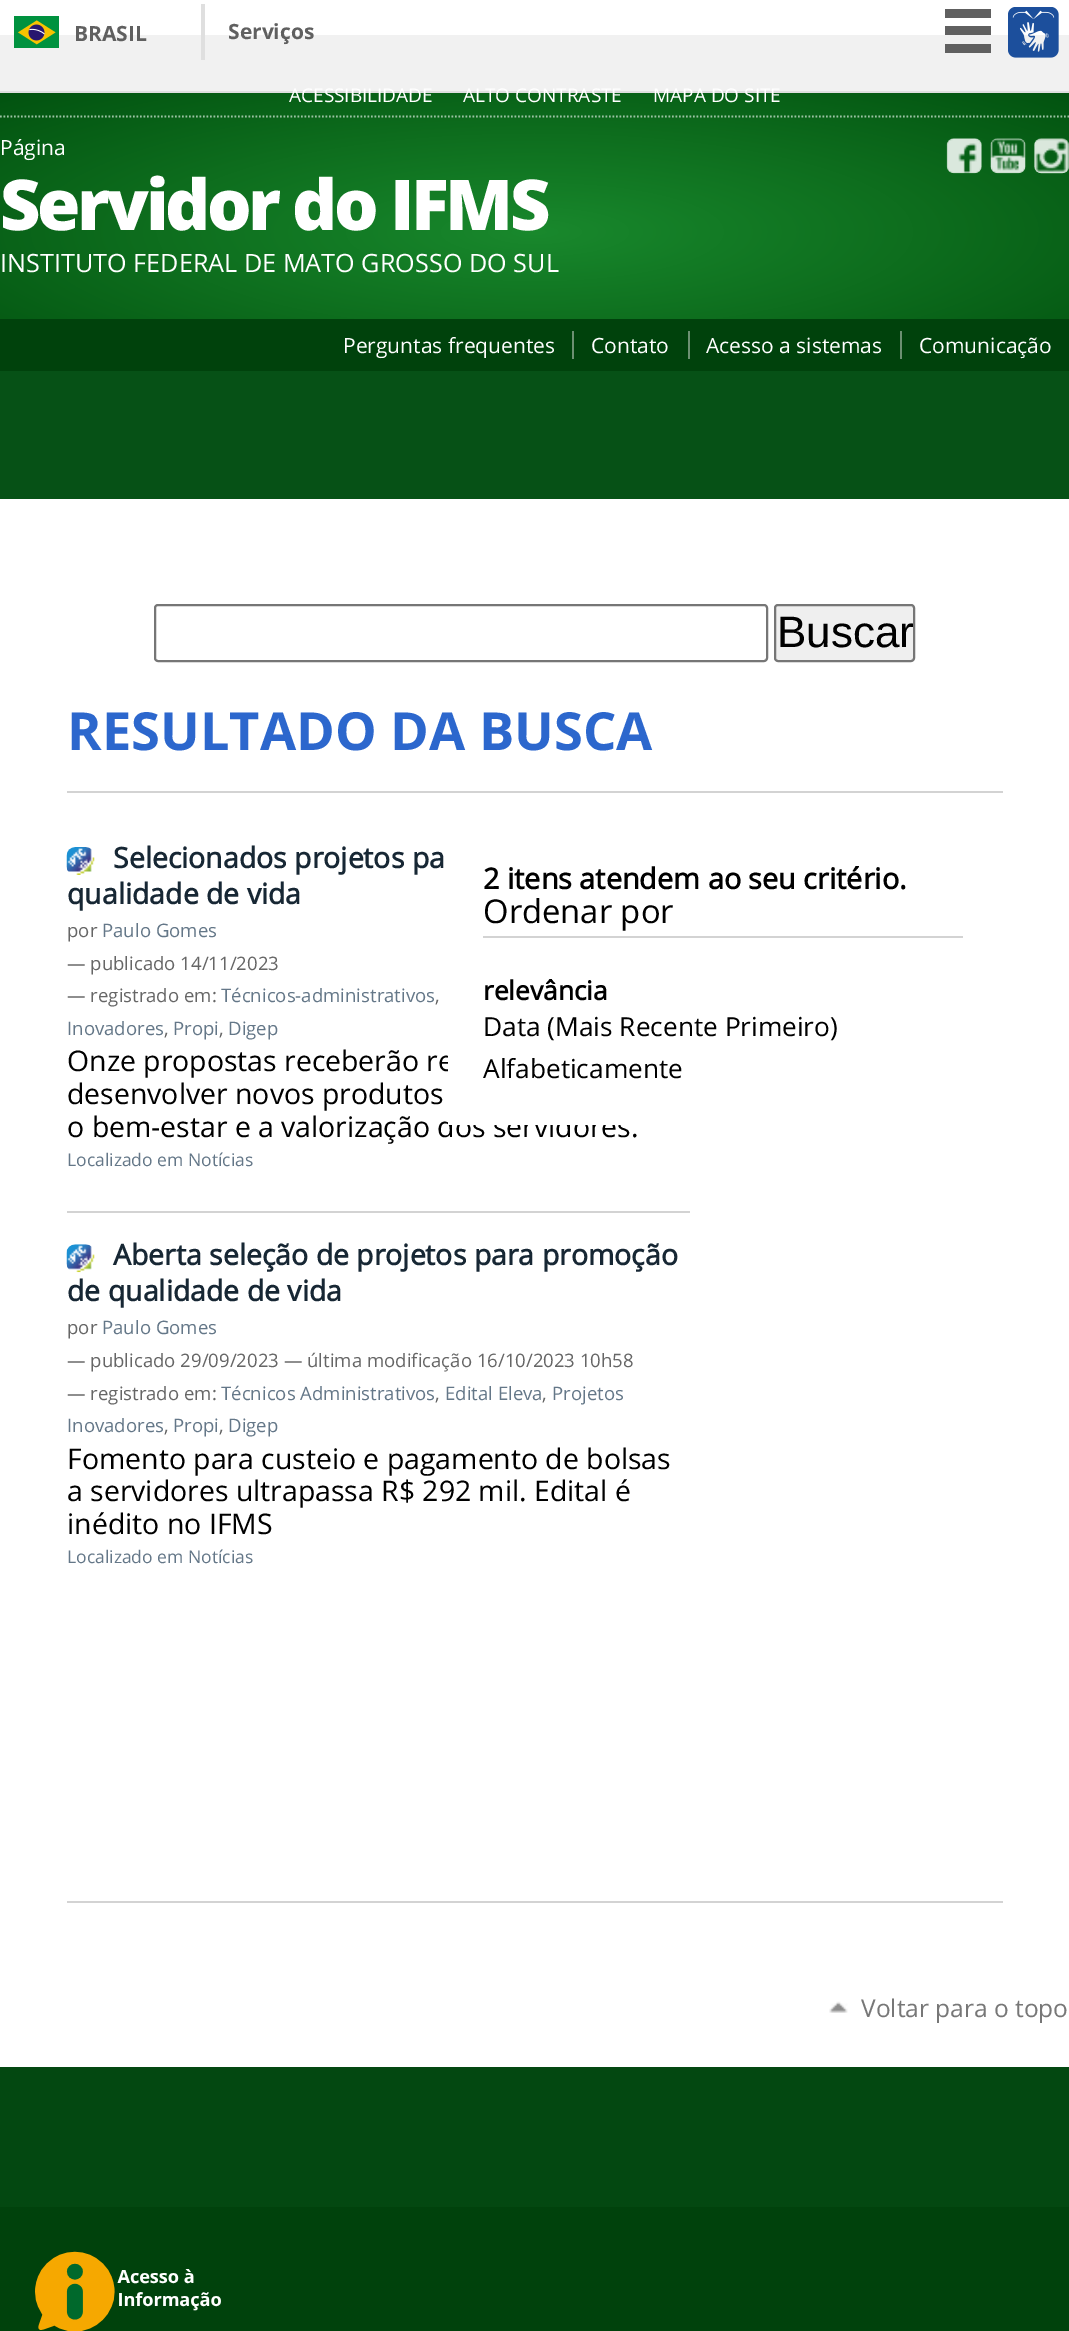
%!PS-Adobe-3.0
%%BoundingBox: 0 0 1069 2331
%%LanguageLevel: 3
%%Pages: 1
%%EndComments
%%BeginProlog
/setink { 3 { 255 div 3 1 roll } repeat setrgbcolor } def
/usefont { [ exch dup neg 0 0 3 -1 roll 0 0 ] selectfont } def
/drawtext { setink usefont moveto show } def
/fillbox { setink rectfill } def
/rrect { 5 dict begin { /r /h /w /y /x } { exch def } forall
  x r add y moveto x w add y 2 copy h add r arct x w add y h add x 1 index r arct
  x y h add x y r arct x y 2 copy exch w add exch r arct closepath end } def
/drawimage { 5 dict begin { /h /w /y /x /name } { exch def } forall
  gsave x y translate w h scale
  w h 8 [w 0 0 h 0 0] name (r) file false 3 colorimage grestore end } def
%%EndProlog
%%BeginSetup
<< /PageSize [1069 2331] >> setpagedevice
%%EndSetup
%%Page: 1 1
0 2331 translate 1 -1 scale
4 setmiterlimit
0 0 1069 2331 255 255 255 fillbox
0 35 1069 56 241 241 241 fillbox
0 91 1069 2 223 223 223 fillbox
201 4 4 56 223 223 223 fillbox
(assets/img1.rgb) 14 16 45 32 drawimage
(BRASIL) 74 41 /OpenSans-Bold 21 96 96 96 drawtext
(Serviços) 228 39 /OpenSans-Bold 21 96 96 96 drawtext
945 9 46 9 96 96 96 fillbox
945 26 46 9 96 96 96 fillbox
945 44 46 9 96 96 96 fillbox
(assets/img2.rgb) 1008 7 51 51 drawimage
gsave 0 93 moveto 1069 93 lineto 1069 319 lineto 0 319 lineto closepath clip newpath 535 232 translate 756 197 scale
<< /ShadingType 3 /ColorSpace /DeviceRGB /Coords [0 0 0 0 0 1] /Extend [true true] /Function << /FunctionType 3 /Domain [0 1] /Functions [<< /FunctionType 2 /Domain [0 1] /C0 [0.098 0.533 0.173] /C1 [0.098 0.533 0.173] /N 1 >> << /FunctionType 2 /Domain [0 1] /C0 [0.098 0.533 0.173] /C1 [0.008 0.325 0.063] /N 1 >>] /Bounds [0.01] /Encode [0 1 0 1] >> >> shfill grestore
155 194 163 setink
1.8 setlinewidth
[1.75 1.75] 0 setdash
0 116.5 moveto 1069 116.5 lineto stroke
(ACESSIBILIDADE) 289 102 /OpenSans-Regular 19 255 255 255 drawtext
(ALTO CONTRASTE) 463 102 /OpenSans-Regular 19 255 255 255 drawtext
(MAPA DO SITE) 653 102 /OpenSans-Regular 19 255 255 255 drawtext
(Página) 0 155 /OpenSans-Regular 21 255 255 255 drawtext
/OpenSans-ExtraBold 70.25 usefont
0 230 moveto -3.5 0 (Servidor do IFMS) ashow
(INSTITUTO FEDERAL DE MATO GROSSO DO SUL) 0 272 /OpenSans-Regular 25.2 255 255 255 drawtext
(assets/img3.rgb) 946 138 36 36 drawimage
(assets/img4.rgb) 990 138 36 36 drawimage
(assets/img5.rgb) 1034 138 35 36 drawimage
0 319 1069 52 0 66 12 fillbox
(Perguntas frequentes) 343 353 /OpenSans-Regular 21 255 255 255 drawtext
572 331 2 28 108 144 114 fillbox
(Contato) 591 353 /OpenSans-Regular 21 255 255 255 drawtext
688 331 2 28 108 144 114 fillbox
(Acesso a sistemas) 706 353 /OpenSans-Regular 21 255 255 255 drawtext
900 331 2 28 108 144 114 fillbox
(Comunicação) 919 353 /OpenSans-Regular 21 255 255 255 drawtext
0 371 1069 128 6 81 22 fillbox
118 118 118 setink
2 setlinewidth
[] 0 setdash
155 605 612 56 3 rrect stroke
239 239 239 setink
775 605 139 56 3 rrect gsave fill grestore
118 118 118 setink
stroke
(Buscar) 777 647 /LiberationSans-Regular 44 0 0 0 drawtext
67 791 936 2 211 211 211 fillbox
(RESULTADO DA BUSCA) 67 750 /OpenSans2-Bold 52.5 44 103 205 drawtext
67 1901 936 2 211 211 211 fillbox
(assets/img6.rgb) 66 847 29 28 drawimage
(Selecionados projetos pa) 113 868 /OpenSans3-Bold 28.4 23 39 52 drawtext
(qualidade de vida) 67 904 /OpenSans3-Bold 28.4 23 39 52 drawtext
(por) 67 937 /OpenSans-Regular 18.55 102 102 102 drawtext
(Paulo Gomes) 102 937 /OpenSans-Regular 18.55 100 119 136 drawtext
(— publicado 14/11/2023) 67 970 /OpenSans-Regular 18.55 102 102 102 drawtext
(— registrado em:) 67 1002 /OpenSans-Regular 18.55 102 102 102 drawtext
(Técnicos-administrativos) 221 1002 /OpenSans-Regular 18.55 100 119 136 drawtext
(,) 435 1002 /OpenSans-Regular 18.55 102 102 102 drawtext
(Inovadores) 67 1035 /OpenSans-Regular 18.55 100 119 136 drawtext
(,) 164 1035 /OpenSans-Regular 18.55 102 102 102 drawtext
(Propi) 173 1035 /OpenSans-Regular 18.55 100 119 136 drawtext
(,) 219 1035 /OpenSans-Regular 18.55 102 102 102 drawtext
(Digep) 228 1035 /OpenSans-Regular 18.55 100 119 136 drawtext
(Onze propostas receberão re) 67 1071 /OpenSans-Regular 28.4 0 0 0 drawtext
(desenvolver novos produtos) 67 1104 /OpenSans-Regular 28.4 0 0 0 drawtext
(o bem-estar e a valorização dos servidores.) 67 1137 /OpenSans-Regular 28.4 0 0 0 drawtext
(Localizado em Notícias) 67 1166 /OpenSans-Regular 17.5 100 119 136 drawtext
67 1211 623 2 211 211 211 fillbox
(assets/img7.rgb) 66 1244 29 29 drawimage
(Aberta seleção de projetos para promoção) 113 1265 /OpenSans3-Bold 28.4 23 39 52 drawtext
(de qualidade de vida) 67 1301 /OpenSans3-Bold 28.4 23 39 52 drawtext
(por) 67 1334 /OpenSans-Regular 18.55 102 102 102 drawtext
(Paulo Gomes) 102 1334 /OpenSans-Regular 18.55 100 119 136 drawtext
(— publicado 29/09/2023 — última modificação 16/10/2023 10h58) 67 1367 /OpenSans-Regular 18.55 102 102 102 drawtext
(— registrado em:) 67 1400 /OpenSans-Regular 18.55 102 102 102 drawtext
(Técnicos Administrativos) 221 1400 /OpenSans-Regular 18.55 100 119 136 drawtext
(,) 435 1400 /OpenSans-Regular 18.55 102 102 102 drawtext
(Edital Eleva) 445 1400 /OpenSans-Regular 18.55 100 119 136 drawtext
(,) 542 1400 /OpenSans-Regular 18.55 102 102 102 drawtext
(Projetos) 552 1400 /OpenSans-Regular 18.55 100 119 136 drawtext
(Inovadores) 67 1432 /OpenSans-Regular 18.55 100 119 136 drawtext
(,) 164 1432 /OpenSans-Regular 18.55 102 102 102 drawtext
(Propi) 173 1432 /OpenSans-Regular 18.55 100 119 136 drawtext
(,) 219 1432 /OpenSans-Regular 18.55 102 102 102 drawtext
(Digep) 228 1432 /OpenSans-Regular 18.55 100 119 136 drawtext
(Fomento para custeio e pagamento de bolsas) 67 1469 /OpenSans-Regular 28.4 0 0 0 drawtext
(a servidores ultrapassa R$ 292 mil. Edital é) 67 1501 /OpenSans-Regular 28.4 0 0 0 drawtext
(inédito no IFMS) 67 1534 /OpenSans-Regular 28.4 0 0 0 drawtext
(Localizado em Notícias) 67 1563 /OpenSans-Regular 17.5 100 119 136 drawtext
448 1055 181 70 255 255 255 fillbox
(2 itens atendem ao seu critério.) 483 889 /OpenSans3-Bold 28.8 0 0 0 drawtext
483 936 480 2 211 211 211 fillbox
(Ordenar por) 483 923 /OpenSans-Regular 32.75 0 0 0 drawtext
(relevância) 483 1000 /OpenSans3-Bold 26.25 0 0 0 drawtext
(Data \(Mais Recente Primeiro\)) 483 1036 /OpenSans-Regular 26.25 0 0 0 drawtext
(Alfabeticamente) 483 1078 /OpenSans-Regular 26.25 0 0 0 drawtext
(assets/img8.rgb) 829 2001 19 12 drawimage
(Voltar para o topo) 861 2017 /OpenSans-Regular 24.5 119 119 119 drawtext
0 2067 1069 140 3 72 17 fillbox
0 2207 1069 124 0 66 12 fillbox
(assets/img9.rgb) 35 2251 186 80 drawimage
showpage
%%EOF
